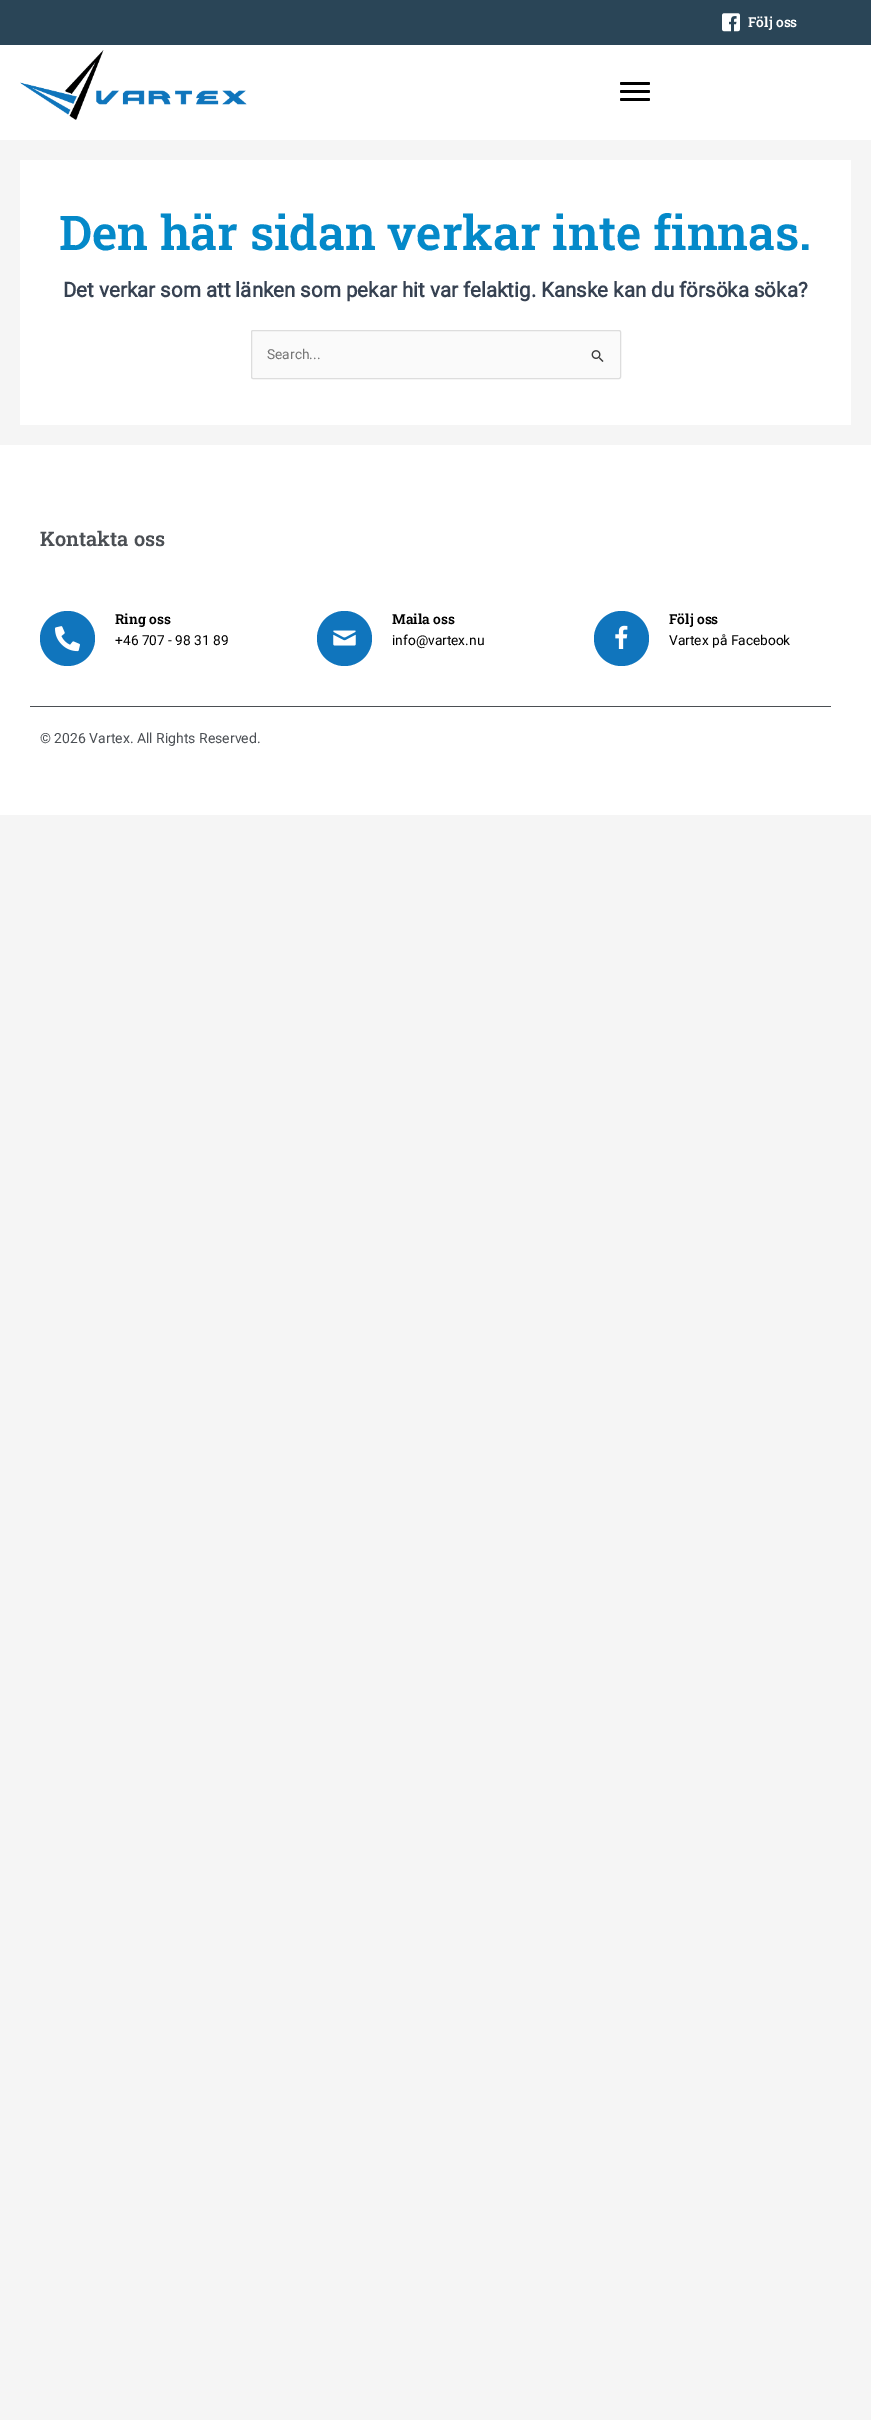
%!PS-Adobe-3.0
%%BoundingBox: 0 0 871 2420
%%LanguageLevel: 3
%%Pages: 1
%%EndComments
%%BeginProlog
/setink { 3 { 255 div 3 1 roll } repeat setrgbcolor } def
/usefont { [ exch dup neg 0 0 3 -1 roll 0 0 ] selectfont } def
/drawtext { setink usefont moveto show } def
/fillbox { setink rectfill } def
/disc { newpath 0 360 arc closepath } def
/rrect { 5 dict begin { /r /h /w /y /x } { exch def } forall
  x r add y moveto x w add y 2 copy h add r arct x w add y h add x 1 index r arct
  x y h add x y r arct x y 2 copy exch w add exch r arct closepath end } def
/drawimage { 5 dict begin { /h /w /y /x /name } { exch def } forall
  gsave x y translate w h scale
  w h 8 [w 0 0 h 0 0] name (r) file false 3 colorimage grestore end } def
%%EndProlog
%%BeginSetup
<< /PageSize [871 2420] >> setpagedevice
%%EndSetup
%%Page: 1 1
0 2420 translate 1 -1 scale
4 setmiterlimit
0 0 871 2420 245 245 245 fillbox
0 0 871 45 42 69 87 fillbox
(assets/img1.rgb) 722 13 18 19 drawimage
(Följ oss) 748 27 /RobotoSlab-SemiBold 13.75 255 255 255 drawtext
0 45 871 95 255 255 255 fillbox
(assets/img2.rgb) 20 50 227 70 drawimage
0 0 0 setink
620 90 30 3 1.5 rrect fill
620 82 30 3 1.5 rrect fill
620 98 30 3 1.5 rrect fill
20 160 831 265 255 255 255 fillbox
(Den här sidan verkar inte finnas.) 59 250 /RobotoSlab-SemiBold 48 4 137 201 drawtext
(Det verkar som att länken som pekar hit var felaktig. Kanske kan du försöka söka?) 63 297 /Roboto-Bold 20.5 54 65 81 drawtext
250 250 250 setink
251.5 330.5 369 48 1.5 rrect gsave fill grestore
221 221 221 setink
stroke
(Search...) 267 359 /Roboto-Regular 13.75 117 117 117 drawtext
(assets/img3.rgb) 591 350 13 12 drawimage
0 445 871 370 255 255 255 fillbox
(Kontakta oss) 40 546 /RobotoSlab-SemiBold 20 75 79 84 drawtext
16 117 189 setink
67.5 638.5 27.5 disc fill
(assets/img4.rgb) 55 626 25 26 drawimage
(Ring oss) 115 624 /RobotoSlab-SemiBold 13.75 0 0 0 drawtext
(+46 707 - 98 31 89) 115 645 /Roboto-Regular 13.75 0 0 0 drawtext
16 117 189 setink
344.5 638.5 27.5 disc fill
(assets/img5.rgb) 333 630 23 16 drawimage
(Maila oss) 392 624 /RobotoSlab-SemiBold 13.75 0 0 0 drawtext
(info@vartex.nu) 392 645 /Roboto-Regular 13.75 0 0 0 drawtext
16 117 189 setink
621.5 638.5 27.5 disc fill
(assets/img6.rgb) 615 625 13 24 drawimage
(Följ oss) 669 624 /RobotoSlab-SemiBold 13.75 0 0 0 drawtext
(Vartex på Facebook) 669 645 /Roboto-Regular 13.75 0 0 0 drawtext
30 706 801 1 75 79 84 fillbox
(© 2026 Vartex. All Rights Reserved.) 40 743 /Roboto-Regular 14 75 79 84 drawtext
showpage
%%EOF
